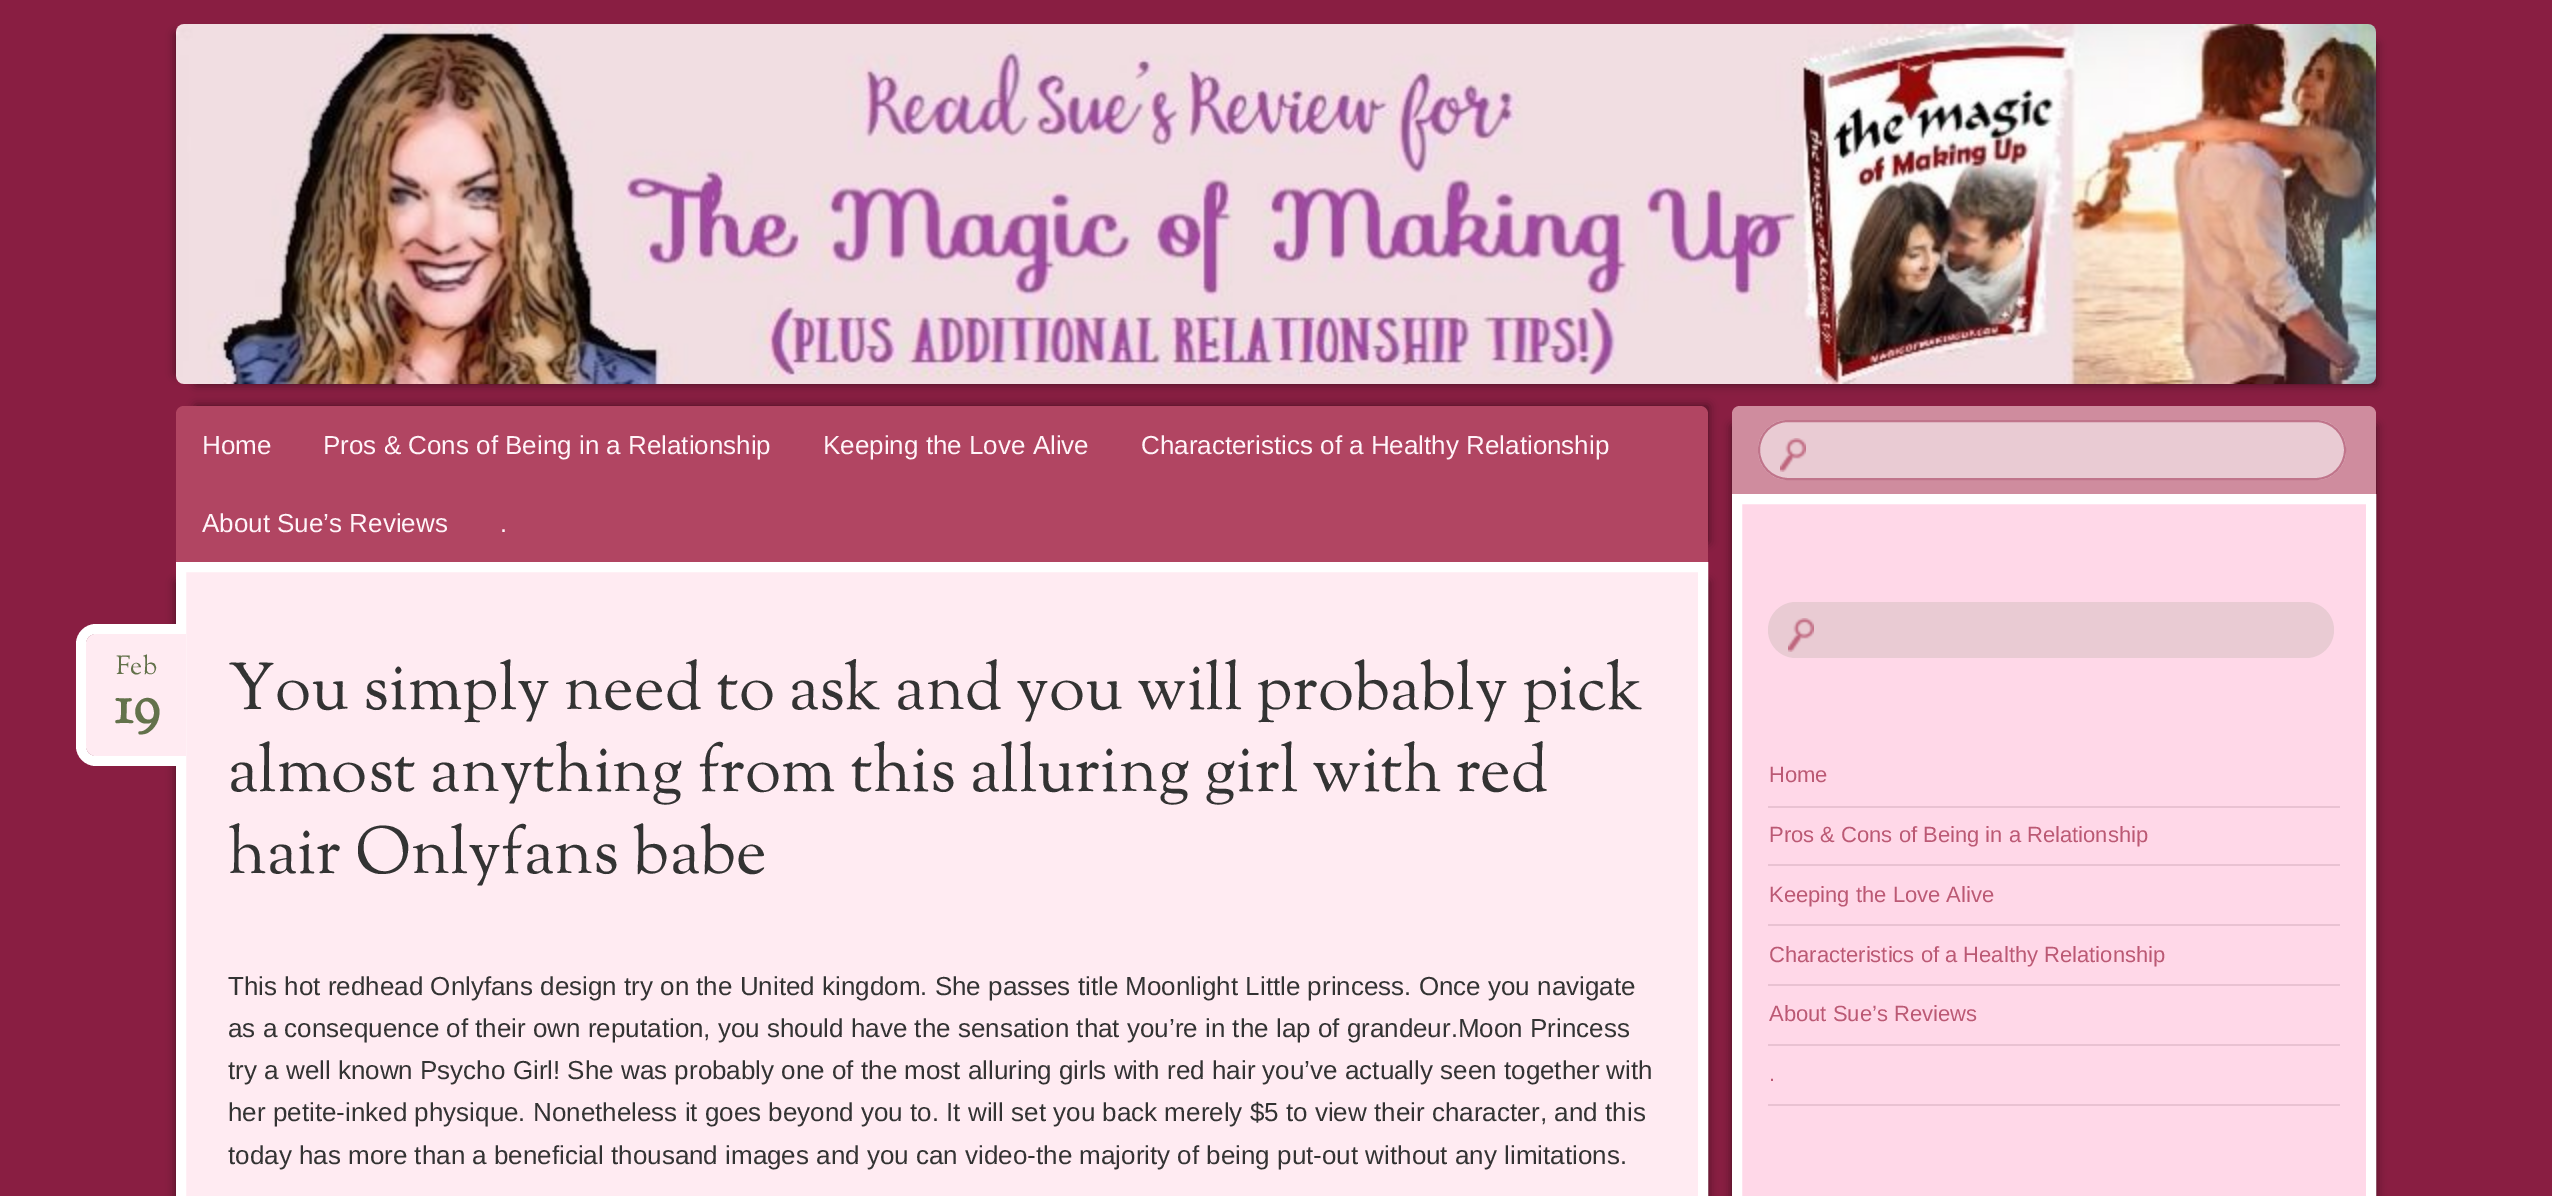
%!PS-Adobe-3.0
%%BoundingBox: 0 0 2552 1196
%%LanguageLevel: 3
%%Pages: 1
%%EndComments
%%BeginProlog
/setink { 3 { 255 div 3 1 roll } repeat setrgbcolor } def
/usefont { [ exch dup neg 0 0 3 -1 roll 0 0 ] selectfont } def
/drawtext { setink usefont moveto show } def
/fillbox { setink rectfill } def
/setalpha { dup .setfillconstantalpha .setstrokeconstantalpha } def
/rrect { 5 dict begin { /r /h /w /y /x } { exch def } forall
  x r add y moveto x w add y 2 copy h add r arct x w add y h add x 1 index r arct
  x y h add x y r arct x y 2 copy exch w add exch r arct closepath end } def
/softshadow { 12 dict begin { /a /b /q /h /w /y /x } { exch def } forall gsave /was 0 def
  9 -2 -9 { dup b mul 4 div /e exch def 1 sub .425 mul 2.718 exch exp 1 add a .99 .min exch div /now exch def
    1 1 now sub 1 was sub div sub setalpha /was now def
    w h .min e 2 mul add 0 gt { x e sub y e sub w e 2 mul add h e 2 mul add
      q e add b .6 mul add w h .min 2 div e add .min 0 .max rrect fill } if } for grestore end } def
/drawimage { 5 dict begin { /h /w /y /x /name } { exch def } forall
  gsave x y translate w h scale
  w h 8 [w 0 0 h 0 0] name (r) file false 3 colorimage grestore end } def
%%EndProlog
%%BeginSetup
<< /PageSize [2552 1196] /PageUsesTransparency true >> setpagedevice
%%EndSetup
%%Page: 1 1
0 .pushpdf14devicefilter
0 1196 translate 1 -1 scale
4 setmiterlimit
0 0 2552 1196 137 30 66 fillbox
0 0 0 setink
176 34 2180 340 0 5 0.5 softshadow
196 44 2180 340 0 5 0.5 softshadow
(assets/img1.rgb) 176 24 2200 360 drawimage
196 406 1512 136 0 5 0.5 softshadow
177 69 98 setink
184 406 moveto 1700 406 lineto 1704.5 406 1708 409.5 1708 414 curveto 1708 562 lineto 176 562 lineto 176 414 lineto 176 409.5 179.5 406 184 406 curveto closepath fill
(Home) 202 454 /LiberationSans-Regular 26 255 244 249 drawtext
(Pros & Cons of Being in a Relationship) 323 454 /LiberationSans-Regular 26 255 244 249 drawtext
(Keeping the Love Alive) 823 454 /LiberationSans-Regular 26 255 244 249 drawtext
(Characteristics of a Healthy Relationship) 1141 454 /LiberationSans-Regular 26 255 244 249 drawtext
(About Sue’s Reviews) 202 532 /LiberationSans-Regular 26 255 244 249 drawtext
(.) 500 532 /LiberationSans-Regular 26 255 244 249 drawtext
0 0 0 setink
176 582 1512 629 0 5 0.5 softshadow
196 582 1512 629 0 5 0.5 softshadow
255 235 242 setink
181 567 moveto 1703 567 lineto 1703 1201 lineto 181 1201 lineto closepath gsave fill grestore
255 255 255 setink
10 setlinewidth
stroke
255 235 242 setink
96 634 moveto 186 634 lineto 186 756 lineto 96 756 lineto 90.5 756 86 751.5 86 746 curveto 86 644 lineto 86 638.5 90.5 634 96 634 curveto closepath fill
255 255 255 setink
96 624 moveto 186 624 lineto 186 766 lineto 96 766 lineto 85 766 76 757 76 746 curveto 76 644 lineto 76 633 85 624 96 624 curveto closepath 96 634 moveto 186 634 lineto 186 756 lineto 96 756 lineto 90 756 86 752 86 746 curveto 86 644 lineto 86 638 90 634 96 634 curveto closepath eofill
(Feb) 116 674 /SortsMillGoudy-Regular 26 99 114 75 drawtext
(19) 114 723 /SortsMillGoudy-Bold 56 99 114 75 drawtext
(You simply need to ask and you will probably pick) 228 709 /SortsMillGoudy-Regular 66 51 51 51 drawtext
(almost anything from this alluring girl with red) 228 791 /SortsMillGoudy-Regular 66 51 51 51 drawtext
(hair Onlyfans babe) 228 873 /SortsMillGoudy-Regular 66 51 51 51 drawtext
(This hot redhead Onlyfans design try on the United kingdom. She passes title Moonlight Little princess. Once you navigate) 228 995 /LiberationSans-Regular 26 51 51 51 drawtext
(as a consequence of their own reputation, you should have the sensation that you’re in the lap of grandeur.Moon Princess) 228 1037 /LiberationSans-Regular 26 51 51 51 drawtext
(try a well known Psycho Girl! She was probably one of the most alluring girls with red hair you’ve actually seen together with) 228 1079 /LiberationSans-Regular 26 51 51 51 drawtext
(her petite-inked physique. Nonetheless it goes beyond you to. It will set you back merely $5 to view their character, and this) 228 1121 /LiberationSans-Regular 26 51 51 51 drawtext
(today has more than a beneficial thousand images and you can video-the majority of being put-out without any limitations.) 228 1164 /LiberationSans-Regular 26 51 51 51 drawtext
0 0 0 setink
1732 426 624 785 0 5 0.5 softshadow
1752 426 624 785 0 5 0.5 softshadow
207 140 158 setink
1740 406 moveto 2368 406 lineto 2372.5 406 2376 409.5 2376 414 curveto 2376 494 lineto 1732 494 lineto 1732 414 lineto 1732 409.5 1735.5 406 1740 406 curveto closepath fill
233 203 211 setink
1758 420 588 60 30 rrect fill
(assets/img2.rgb) 1780 438 26 34 drawimage
192 117 139 setink
2 setlinewidth
1759 421 586 58 29 rrect stroke
255 216 232 setink
1737 499 moveto 2371 499 lineto 2371 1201 lineto 1737 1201 lineto closepath gsave fill grestore
255 255 255 setink
10 setlinewidth
stroke
233 203 211 setink
1768 602 566 56 28 rrect fill
(assets/img2.rgb) 1788 618 26 34 drawimage
1768 806 572 2 233 194 210 fillbox
(Home) 1769 782 /LiberationSans-Regular 22 187 89 116 drawtext
1768 864 572 2 233 194 210 fillbox
(Pros & Cons of Being in a Relationship) 1769 842 /LiberationSans-Regular 22 187 89 116 drawtext
1768 924 572 2 233 194 210 fillbox
(Keeping the Love Alive) 1769 902 /LiberationSans-Regular 22 187 89 116 drawtext
1768 984 572 2 233 194 210 fillbox
(Characteristics of a Healthy Relationship) 1769 962 /LiberationSans-Regular 22 187 89 116 drawtext
1768 1044 572 2 233 194 210 fillbox
(About Sue’s Reviews) 1769 1021 /LiberationSans-Regular 22 187 89 116 drawtext
1768 1104 572 2 233 194 210 fillbox
(.) 1769 1081 /LiberationSans-Regular 22 187 89 116 drawtext
.poppdf14devicefilter showpage
%%EOF
